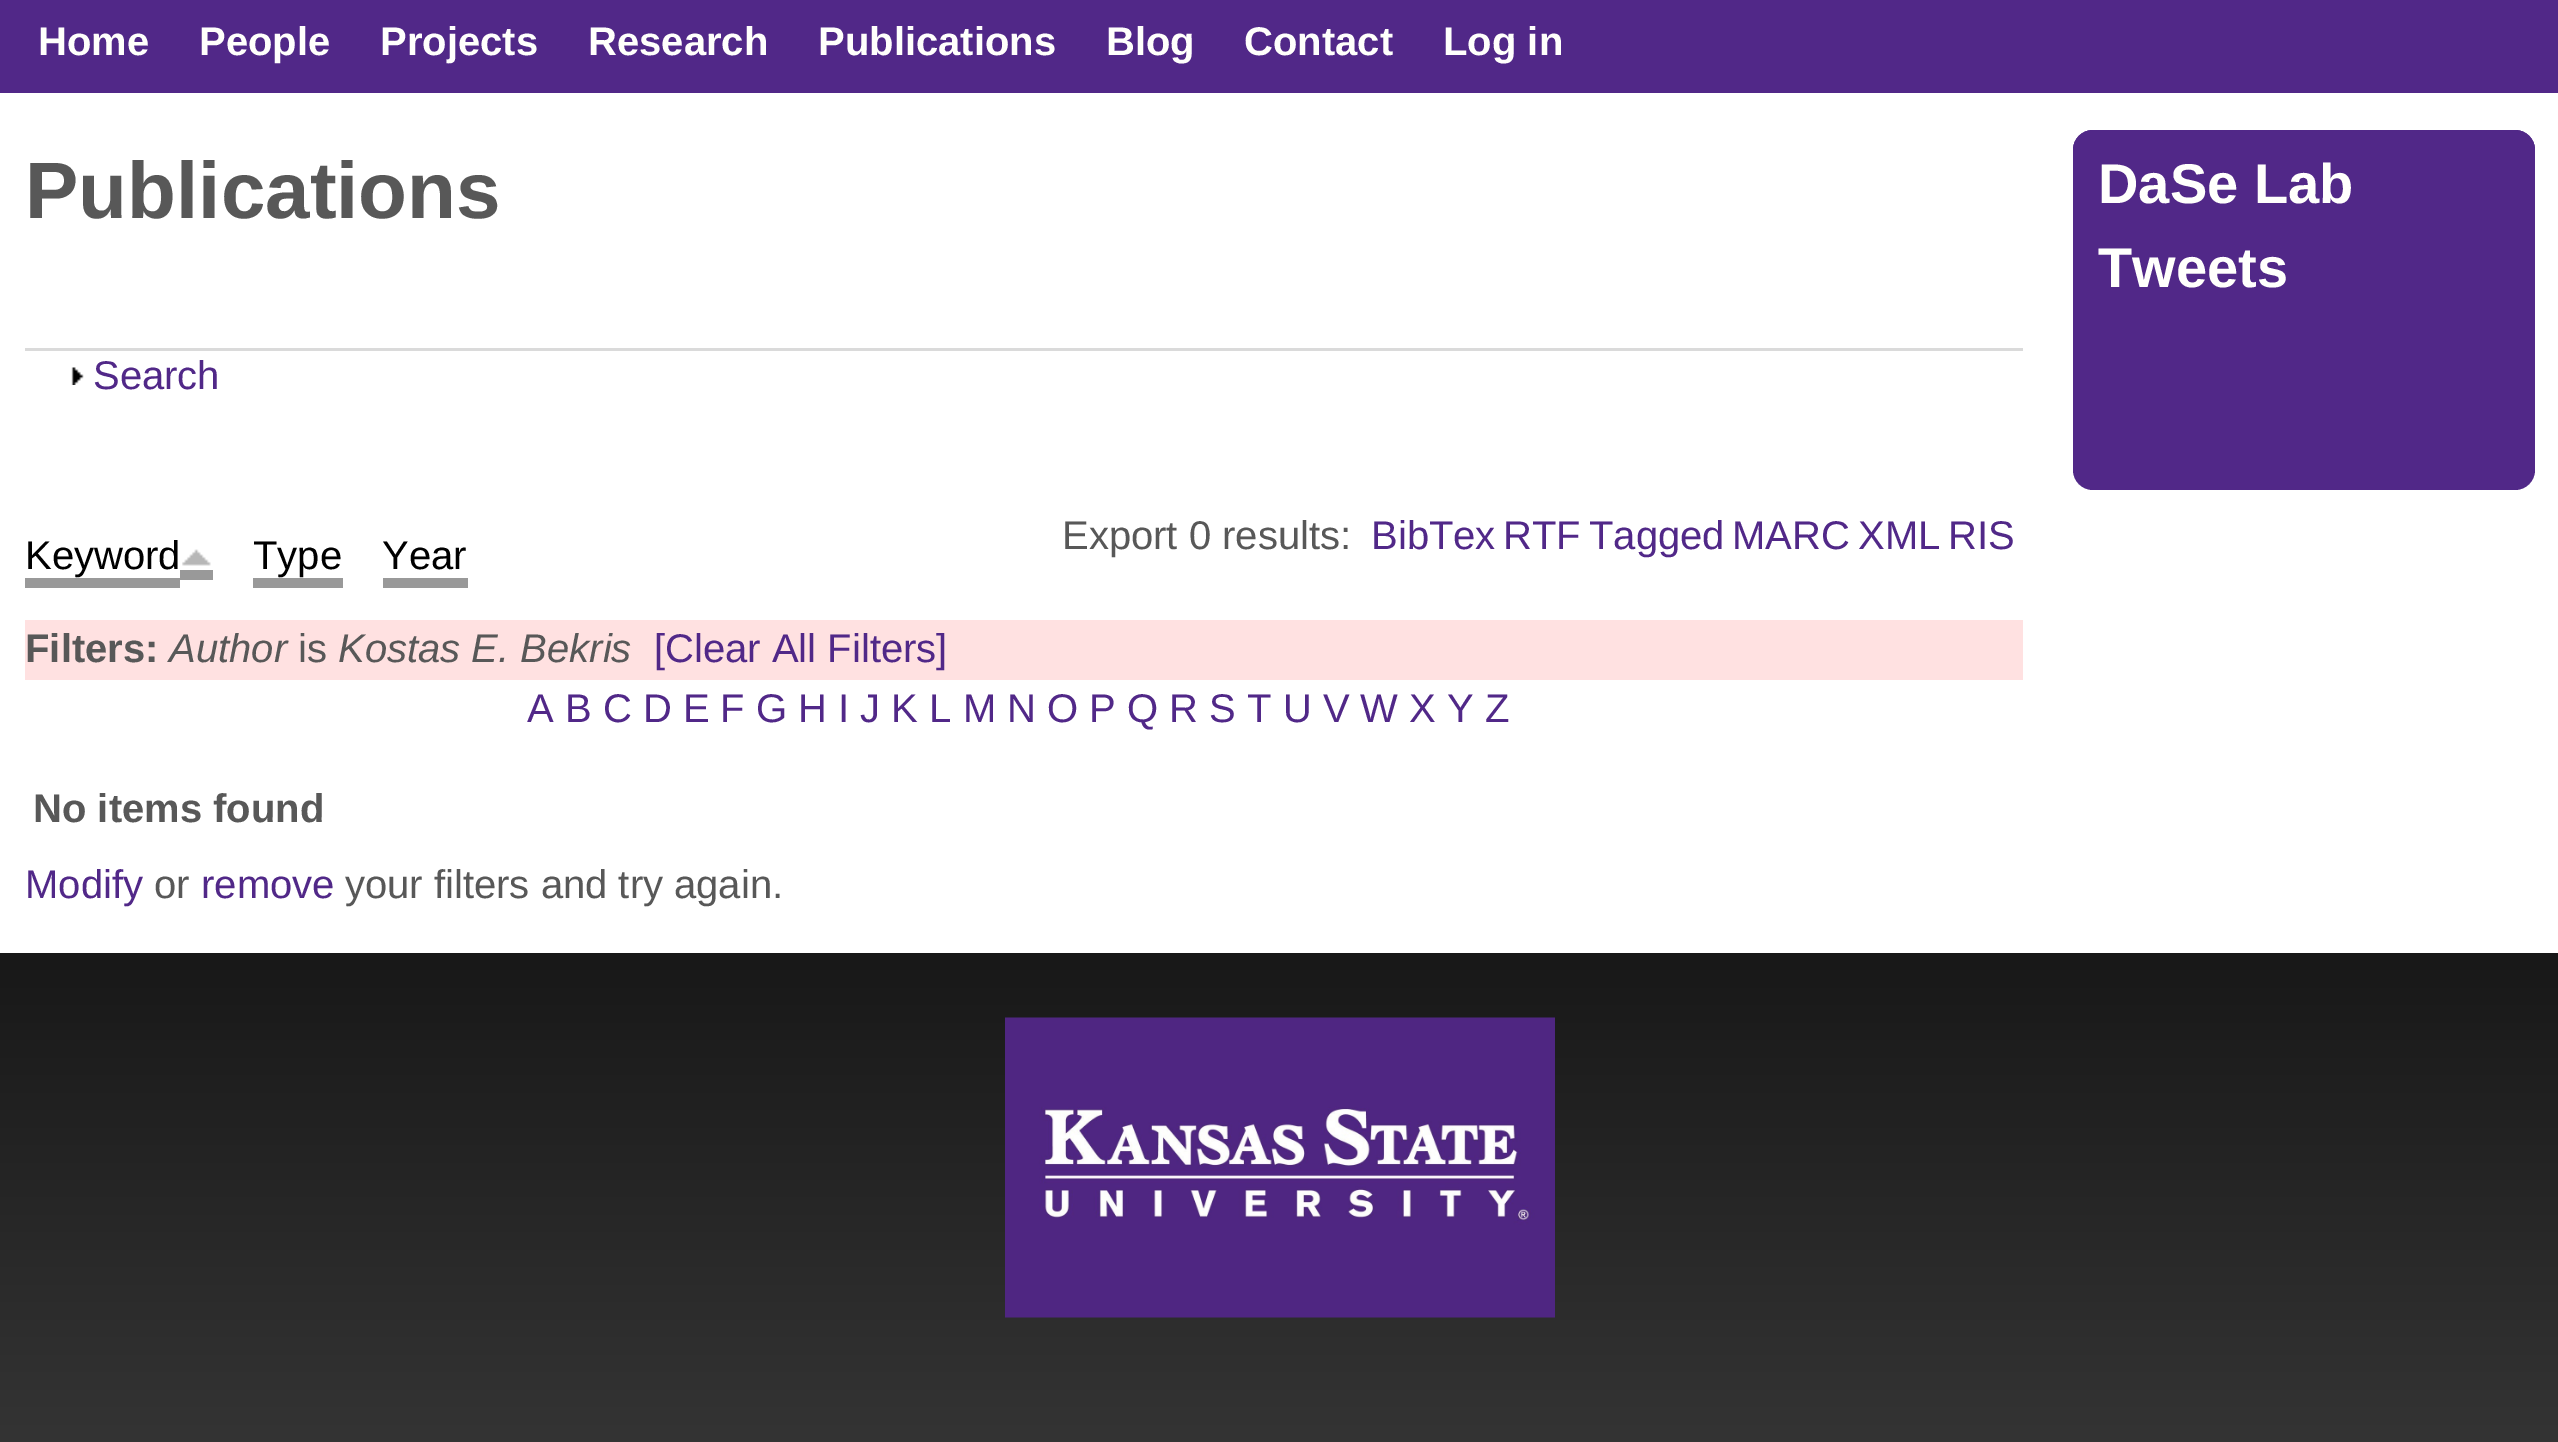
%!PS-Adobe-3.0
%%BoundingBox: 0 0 2558 1442
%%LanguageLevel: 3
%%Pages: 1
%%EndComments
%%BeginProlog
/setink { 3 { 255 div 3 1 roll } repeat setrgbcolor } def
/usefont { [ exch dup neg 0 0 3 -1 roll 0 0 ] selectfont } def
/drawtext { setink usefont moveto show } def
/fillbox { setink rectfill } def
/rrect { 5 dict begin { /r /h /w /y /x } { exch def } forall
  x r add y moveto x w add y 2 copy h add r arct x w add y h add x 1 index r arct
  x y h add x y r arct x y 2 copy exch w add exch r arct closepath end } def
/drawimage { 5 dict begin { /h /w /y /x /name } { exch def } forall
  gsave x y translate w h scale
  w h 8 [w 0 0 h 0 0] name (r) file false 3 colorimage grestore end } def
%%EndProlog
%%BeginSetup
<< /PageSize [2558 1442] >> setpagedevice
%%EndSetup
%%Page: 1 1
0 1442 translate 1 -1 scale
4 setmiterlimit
0 0 2558 1442 255 255 255 fillbox
0 0 2558 93 81 40 136 fillbox
(Home) 38 55 /LiberationSans-Bold 40 255 255 252 drawtext
(People) 199 55 /LiberationSans-Bold 40 255 255 252 drawtext
(Projects) 380 55 /LiberationSans-Bold 40 255 255 252 drawtext
(Research) 588 55 /LiberationSans-Bold 40 255 255 252 drawtext
(Publications) 818 55 /LiberationSans-Bold 40 255 255 252 drawtext
(Blog) 1106 55 /LiberationSans-Bold 40 255 255 252 drawtext
(Contact) 1244 55 /LiberationSans-Bold 40 255 255 252 drawtext
(Log in) 1443 55 /LiberationSans-Bold 40 255 255 252 drawtext
(Publications) 25 218 /LiberationSans-Bold 80 88 88 88 drawtext
25 348 1998 3 218 218 218 fillbox
(assets/img1.rgb) 71 367 13 18 drawimage
(Search) 93 389 /LiberationSans-Regular 40 81 40 136 drawtext
(Keyword) 25 569 /LiberationSans-Regular 40 0 0 0 drawtext
25 578 155 10 153 153 153 fillbox
180 570 33 10 153 153 153 fillbox
(assets/img2.rgb) 182 549 29 17 drawimage
(Type) 253 569 /LiberationSans-Regular 40 0 0 0 drawtext
253 578 90 10 153 153 153 fillbox
(Year) 382 569 /LiberationSans-Regular 40 0 0 0 drawtext
383 578 85 10 153 153 153 fillbox
(Export 0 results:) 1062 549 /LiberationSans-Regular 40 88 88 88 drawtext
(BibTex) 1371 549 /LiberationSans-Regular 40 81 40 136 drawtext
(RTF) 1503 549 /LiberationSans-Regular 40 81 40 136 drawtext
(Tagged) 1589 549 /LiberationSans-Regular 40 81 40 136 drawtext
(MARC) 1732 549 /LiberationSans-Regular 40 81 40 136 drawtext
(XML) 1858 549 /LiberationSans-Regular 40 81 40 136 drawtext
(RIS) 1948 549 /LiberationSans-Regular 40 81 40 136 drawtext
25 620 1998 60 255 225 225 fillbox
(Filters:) 25 662 /LiberationSans-Bold 40 88 88 88 drawtext
(Author) 169 662 /LiberationSans-Italic 40 88 88 88 drawtext
(is) 298 662 /LiberationSans-Regular 40 88 88 88 drawtext
(Kostas E. Bekris) 338 662 /LiberationSans-Italic 40 88 88 88 drawtext
([Clear All Filters]) 654 662 /LiberationSans-Regular 40 81 40 136 drawtext
(A B C D E F G H I J K L M N O P Q R S T U V W X Y Z) 527 722 /LiberationSans-Regular 40 81 40 136 drawtext
(No items found) 33 822 /LiberationSans-Bold 40 88 88 88 drawtext
(Modify) 25 898 /LiberationSans-Regular 40 81 40 136 drawtext
(or) 154 898 /LiberationSans-Regular 40 88 88 88 drawtext
(remove) 201 898 /LiberationSans-Regular 40 81 40 136 drawtext
(your filters and try again.) 345 898 /LiberationSans-Regular 40 88 88 88 drawtext
81 40 136 setink
2073 130 462 360 20 rrect fill
2093 130 moveto 2515 130 lineto 2526 130 2535 139 2535 150 curveto 2535 320 lineto 2073 320 lineto 2073 150 lineto 2073 139 2082 130 2093 130 curveto closepath fill
(DaSe Lab) 2098 203 /LiberationSans-Bold 56 255 255 252 drawtext
(Tweets) 2098 287 /LiberationSans-Bold 56 255 255 252 drawtext
gsave 0 953 moveto 2558 953 lineto 2558 1442 lineto 0 1442 lineto closepath clip newpath
<< /ShadingType 2 /ColorSpace /DeviceRGB /Coords [1280 952 1280 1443] /Extend [true true] /Function << /FunctionType 2 /Domain [0 1] /C0 [0.094 0.094 0.094] /C1 [0.204 0.204 0.204] /N 1 >> >> shfill grestore
(assets/img3.rgb) 1005 1017 550 301 drawimage
showpage
%%EOF
